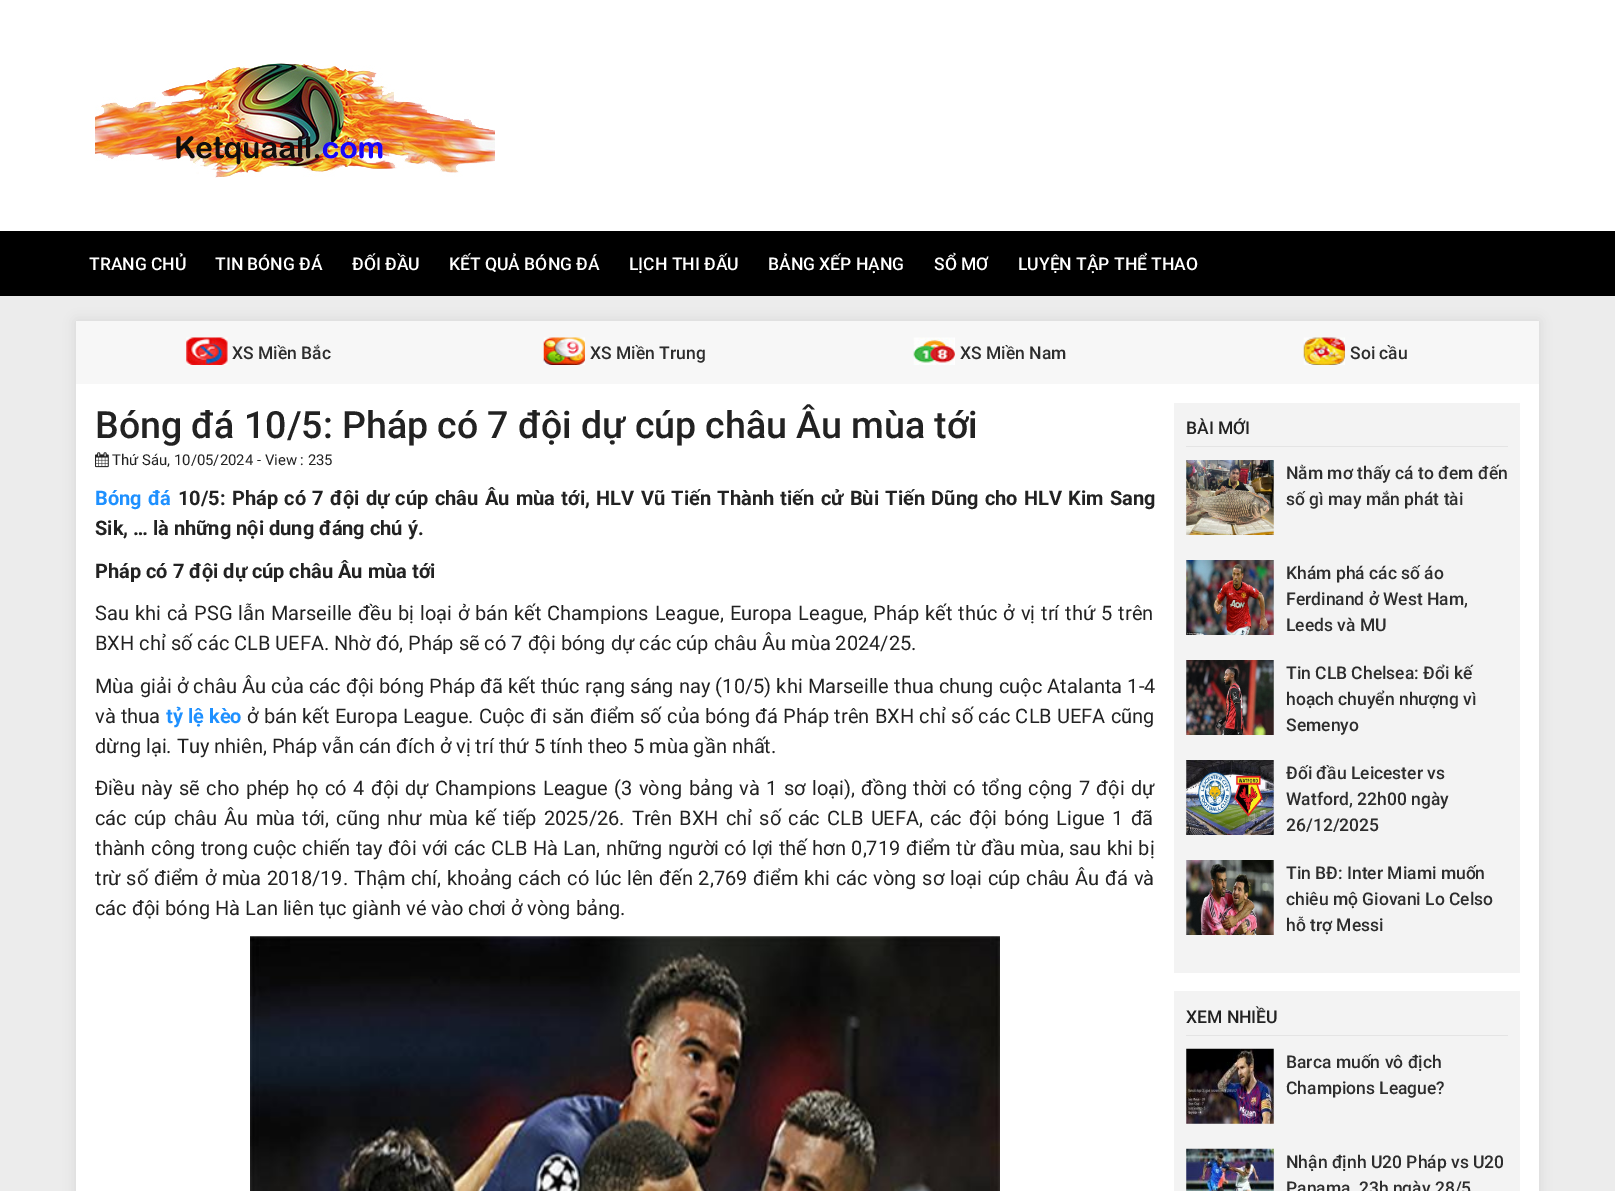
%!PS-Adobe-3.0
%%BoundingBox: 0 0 1615 1191
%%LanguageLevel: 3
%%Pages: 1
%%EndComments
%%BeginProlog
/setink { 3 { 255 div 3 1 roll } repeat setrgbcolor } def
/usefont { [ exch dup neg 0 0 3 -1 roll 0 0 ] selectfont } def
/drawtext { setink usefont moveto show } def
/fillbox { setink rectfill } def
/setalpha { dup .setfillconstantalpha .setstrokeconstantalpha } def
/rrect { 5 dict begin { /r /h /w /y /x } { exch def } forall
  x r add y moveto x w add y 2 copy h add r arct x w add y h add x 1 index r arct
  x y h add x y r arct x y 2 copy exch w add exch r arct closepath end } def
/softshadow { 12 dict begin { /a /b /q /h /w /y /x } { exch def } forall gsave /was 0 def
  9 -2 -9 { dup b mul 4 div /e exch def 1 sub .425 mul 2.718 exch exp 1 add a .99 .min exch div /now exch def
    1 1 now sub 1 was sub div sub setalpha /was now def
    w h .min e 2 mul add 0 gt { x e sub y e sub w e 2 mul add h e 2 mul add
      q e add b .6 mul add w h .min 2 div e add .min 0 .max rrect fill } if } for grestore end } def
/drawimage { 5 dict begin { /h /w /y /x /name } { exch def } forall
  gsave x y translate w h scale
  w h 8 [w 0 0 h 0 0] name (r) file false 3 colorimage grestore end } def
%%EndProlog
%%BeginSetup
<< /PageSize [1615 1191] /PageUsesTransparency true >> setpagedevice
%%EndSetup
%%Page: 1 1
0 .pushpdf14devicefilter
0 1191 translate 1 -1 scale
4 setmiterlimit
0 0 1615 1191 236 236 236 fillbox
0 0 1615 231 255 255 255 fillbox
(assets/img1.rgb) 95 63 400 115 drawimage
0 231 1615 65 0 0 0 fillbox
(TRANG CHỦ) 89 270 /Roboto-Medium 17.5 255 255 255 drawtext
(TIN BÓNG ĐÁ) 215 270 /Roboto-Medium 17.5 255 255 255 drawtext
(ĐỐI ĐẦU) 352 270 /Roboto-Medium 17.5 255 255 255 drawtext
(KẾT QUẢ BÓNG ĐÁ) 449 270 /Roboto-Medium 17.5 255 255 255 drawtext
(LỊCH THI ĐẤU) 629 270 /Roboto-Medium 17.5 255 255 255 drawtext
(BẢNG XẾP HẠNG) 768 270 /Roboto-Medium 17.5 255 255 255 drawtext
(SỔ MƠ) 934 270 /Roboto-Medium 17.5 255 255 255 drawtext
(LUYỆN TẬP THỂ THAO) 1018 270 /Roboto-Medium 17.5 255 255 255 drawtext
0 0 0 setink
76 321 1463 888 0 6 0.09 softshadow
76 384 1463 807 255 255 255 fillbox
76 321 1463 63 247 247 247 fillbox
(assets/img2.rgb) 186 337 42 28 drawimage
(XS Miền Bắc) 232 359 /Roboto-Medium 17.5 45 45 45 drawtext
(assets/img3.rgb) 543 337 42 28 drawimage
(XS Miền Trung) 590 359 /Roboto-Medium 17.5 45 45 45 drawtext
(assets/img4.rgb) 913 337 42 28 drawimage
(XS Miền Nam) 960 359 /Roboto-Medium 17.5 45 45 45 drawtext
(assets/img5.rgb) 1303 337 42 28 drawimage
(Soi cầu) 1350 359 /Roboto-Medium 17.5 45 45 45 drawtext
(Bóng đá 10/5: Pháp có 7 đội dự cúp châu Âu mùa tới) 95 438 /Roboto-Medium 37.5 34 34 34 drawtext
(assets/img6.rgb) 95 452 14 16 drawimage
(Thứ Sáu, 10/05/2024 - View : 235) 112 465 /Roboto-Regular 14.9 34 34 34 drawtext
/Roboto-Bold 20 usefont
30 144 255 setink
95 505 moveto 1 0 32 (Bóng đá) widthshow
34 34 34 setink
178 505 moveto 1.4 0 32 (10/5: Pháp có 7 đội dự cúp châu Âu mùa tới, HLV Vũ Tiến Thành tiến cử Bùi Tiến Dũng cho HLV Kim Sang) widthshow
(Sik, … là những nội dung đáng chú ý.) 95 535 /Roboto-Bold 20 34 34 34 drawtext
(Pháp có 7 đội dự cúp châu Âu mùa tới) 95 578 /Roboto-Bold 20 34 34 34 drawtext
/Roboto-Regular 20 usefont
95 620 moveto 1 0 32 (Sau khi cả PSG lẫn Marseille đều bị loại ở bán kết Champions League, Europa League, Pháp kết thúc ở vị trí thứ 5 trên) widthshow
(BXH chỉ số các CLB UEFA. Nhờ đó, Pháp sẽ có 7 đội bóng dự các cúp châu Âu mùa 2024/25.) 95 650 /Roboto-Regular 20 34 34 34 drawtext
95 693 moveto 0.25 0 32 (Mùa giải ở châu Âu của các đội bóng Pháp đã kết thúc rạng sáng nay \(10/5\) khi Marseille thua chung cuộc Atalanta 1-4) widthshow
(và thua) 95 723 /Roboto-Regular 20 34 34 34 drawtext
(tỷ lệ kèo) 166 723 /Roboto-Bold 20 30 144 255 drawtext
/Roboto-Regular 20 usefont
34 34 34 setink
247 723 moveto 0.4 0 32 (ở bán kết Europa League. Cuộc đi săn điểm số của bóng đá Pháp trên BXH chỉ số các CLB UEFA cũng) widthshow
(dừng lại. Tuy nhiên, Pháp vẫn cán đích ở vị trí thứ 5 tính theo 5 mùa gần nhất.) 95 753 /Roboto-Regular 20 34 34 34 drawtext
95 795 moveto 1.4 0 32 (Điều này sẽ cho phép họ có 4 đội dự Champions League \(3 vòng bảng và 1 sơ loại\), đồng thời có tổng cộng 7 đội dự) widthshow
95 825 moveto 2.2 0 32 (các cúp châu Âu mùa tới, cũng như mùa kế tiếp 2025/26. Trên BXH chỉ số các CLB UEFA, các đội bóng Ligue 1 đã) widthshow
95 855 moveto 0.6 0 32 (thành công trong cuộc chiến tay đôi với các CLB Hà Lan, những người có lợi thế hơn 0,719 điểm từ đầu mùa, sau khi bị) widthshow
95 885 moveto 0.8 0 32 (trừ số điểm ở mùa 2018/19. Thậm chí, khoảng cách có lúc lên đến 2,769 điểm khi các vòng sơ loại cúp châu Âu đá và) widthshow
(các đội bóng Hà Lan liên tục giành vé vào chơi ở vòng bảng.) 95 915 /Roboto-Regular 20 34 34 34 drawtext
(assets/img7.rgb) 250 936 750 255 drawimage
1174 403 346 570 243 243 243 fillbox
1186 446 322 1 228 228 228 fillbox
(BÀI MỚI) 1186 434 /Roboto-Medium 17.5 34 34 34 drawtext
(assets/img8.rgb) 1186 460 88 75 drawimage
(Nằm mơ thấy cá to đem đến) 1286 479 /Roboto-Medium 17.5 45 45 45 drawtext
(số gì may mắn phát tài) 1286 505 /Roboto-Medium 17.5 45 45 45 drawtext
(assets/img9.rgb) 1186 560 88 75 drawimage
(Khám phá các số áo) 1286 579 /Roboto-Medium 17.5 45 45 45 drawtext
(Ferdinand ở West Ham,) 1286 605 /Roboto-Medium 17.5 45 45 45 drawtext
(Leeds và MU) 1286 631 /Roboto-Medium 17.5 45 45 45 drawtext
(assets/img10.rgb) 1186 660 88 75 drawimage
(Tin CLB Chelsea: Đổi kế) 1286 679 /Roboto-Medium 17.5 45 45 45 drawtext
(hoạch chuyển nhượng vì) 1286 705 /Roboto-Medium 17.5 45 45 45 drawtext
(Semenyo) 1286 731 /Roboto-Medium 17.5 45 45 45 drawtext
(assets/img11.rgb) 1186 760 88 75 drawimage
(Đối đầu Leicester vs) 1286 779 /Roboto-Medium 17.5 45 45 45 drawtext
(Watford, 22h00 ngày) 1286 805 /Roboto-Medium 17.5 45 45 45 drawtext
(26/12/2025) 1286 831 /Roboto-Medium 17.5 45 45 45 drawtext
(assets/img12.rgb) 1186 860 88 75 drawimage
(Tin BĐ: Inter Miami muốn) 1286 879 /Roboto-Medium 17.5 45 45 45 drawtext
(chiêu mộ Giovani Lo Celso) 1286 905 /Roboto-Medium 17.5 45 45 45 drawtext
(hỗ trợ Messi) 1286 931 /Roboto-Medium 17.5 45 45 45 drawtext
1174 991 346 200 243 243 243 fillbox
1186 1035 322 1 228 228 228 fillbox
(XEM NHIỀU) 1186 1023 /Roboto-Medium 17.5 34 34 34 drawtext
(assets/img13.rgb) 1186 1048 88 76 drawimage
(Barca muốn vô địch) 1286 1068 /Roboto-Medium 17.5 45 45 45 drawtext
(Champions League?) 1286 1094 /Roboto-Medium 17.5 45 45 45 drawtext
(assets/img14.rgb) 1186 1148 88 43 drawimage
(Nhận định U20 Pháp vs U20) 1286 1168 /Roboto-Medium 17.5 45 45 45 drawtext
(Panama, 23h ngày 28/5) 1286 1194 /Roboto-Medium 17.5 45 45 45 drawtext
.poppdf14devicefilter showpage
%%EOF
